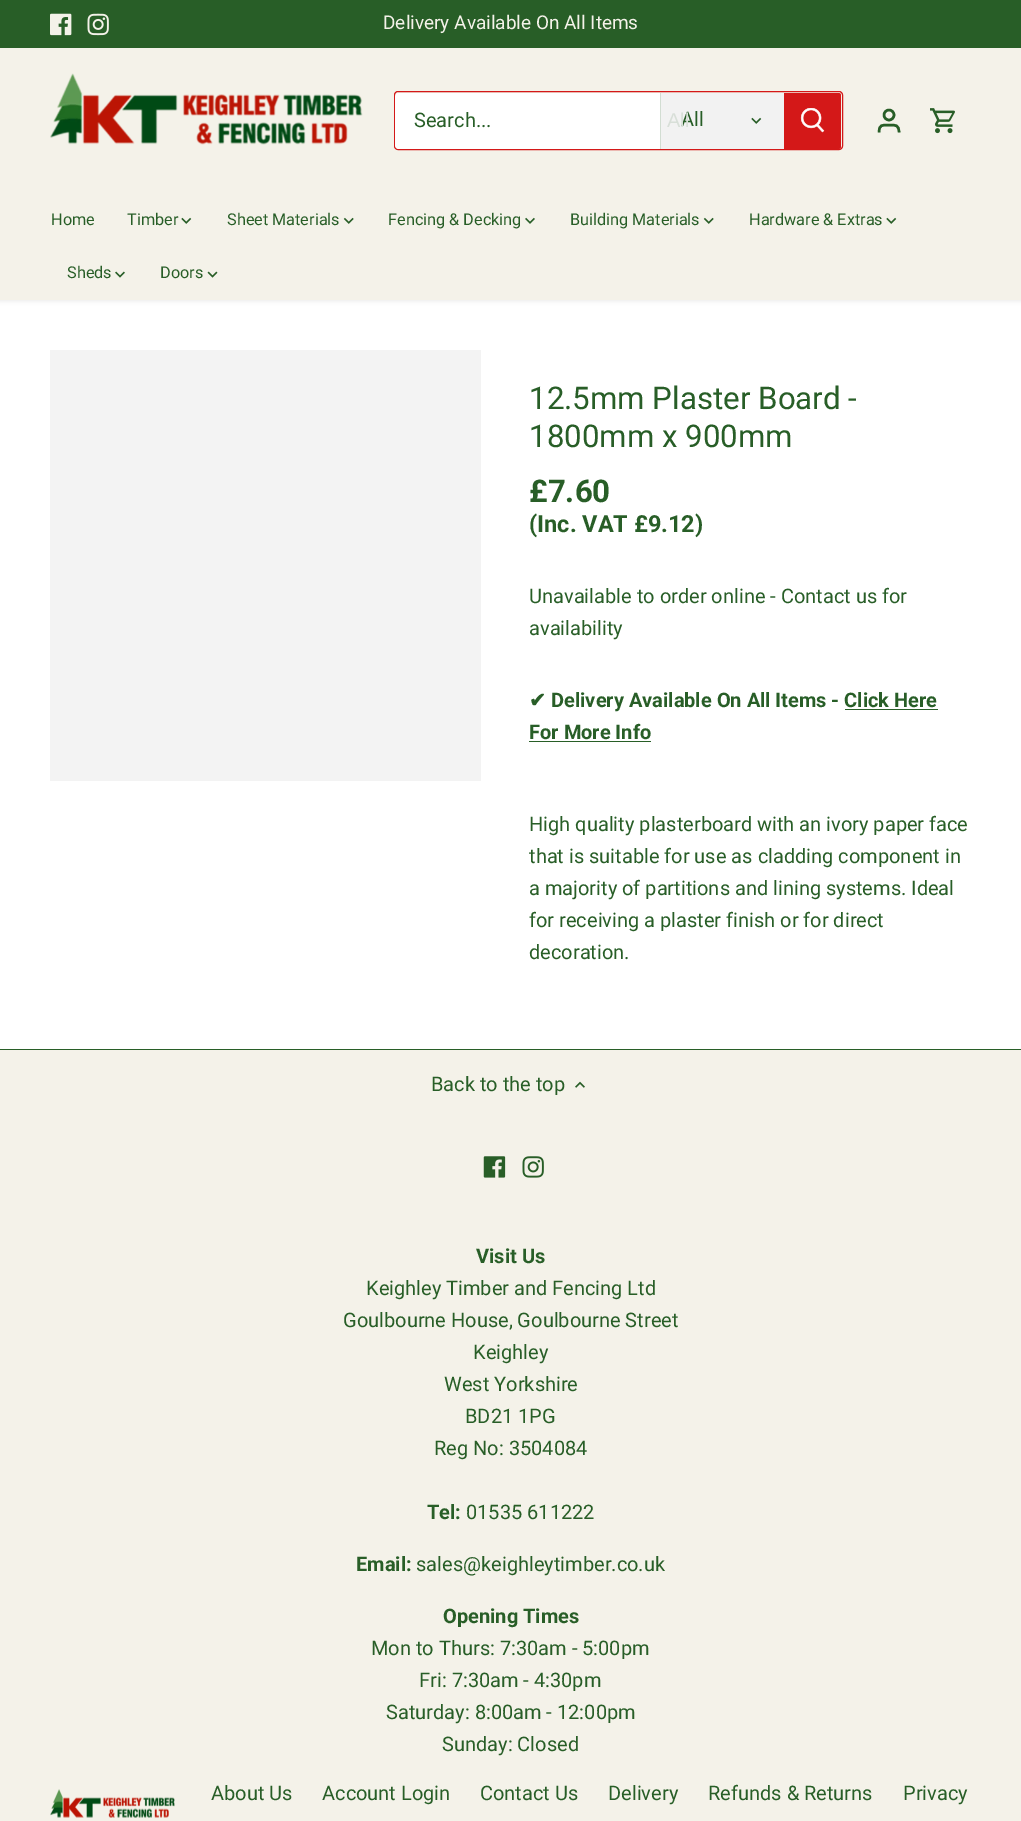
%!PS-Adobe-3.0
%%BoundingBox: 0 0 1021 1821
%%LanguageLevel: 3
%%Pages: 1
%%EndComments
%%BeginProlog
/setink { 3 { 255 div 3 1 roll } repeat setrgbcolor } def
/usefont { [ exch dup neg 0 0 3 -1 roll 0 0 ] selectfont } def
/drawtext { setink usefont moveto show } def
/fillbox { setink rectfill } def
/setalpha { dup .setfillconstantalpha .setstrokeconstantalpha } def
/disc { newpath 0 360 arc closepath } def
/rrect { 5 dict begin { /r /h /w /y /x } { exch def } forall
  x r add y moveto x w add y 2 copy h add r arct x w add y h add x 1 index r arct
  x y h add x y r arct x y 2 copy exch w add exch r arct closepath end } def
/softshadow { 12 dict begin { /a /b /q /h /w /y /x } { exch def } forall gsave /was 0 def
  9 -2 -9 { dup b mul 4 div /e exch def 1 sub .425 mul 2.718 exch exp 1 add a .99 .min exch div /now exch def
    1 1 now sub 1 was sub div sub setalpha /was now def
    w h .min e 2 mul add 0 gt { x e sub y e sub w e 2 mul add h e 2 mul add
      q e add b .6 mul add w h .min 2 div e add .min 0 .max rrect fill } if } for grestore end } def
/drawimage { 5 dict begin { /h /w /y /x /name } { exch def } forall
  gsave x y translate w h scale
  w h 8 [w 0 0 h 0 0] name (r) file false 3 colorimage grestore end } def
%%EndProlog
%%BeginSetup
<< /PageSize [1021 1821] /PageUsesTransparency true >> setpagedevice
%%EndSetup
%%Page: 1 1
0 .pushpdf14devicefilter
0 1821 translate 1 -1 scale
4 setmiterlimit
0 0 1021 1821 244 242 233 fillbox
0 300 1021 749 255 255 255 fillbox
0 0 0 setink
-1 46 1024 255 0 2 0.08 softshadow
0 0 1021 48 40 94 39 fillbox
(assets/img1.rgb) 50 13 22 23 drawimage
(assets/img2.rgb) 87 13 22 23 drawimage
(Delivery Available On All Items) 383 29 /Roboto-Regular 19 244 242 233 drawtext
0 48 1021 252 244 242 233 fillbox
(assets/img3.rgb) 50 73 313 72 drawimage
212 24 24 setink
394.5 91.5 448 58 3.5 rrect stroke
255 255 255 setink
399 93 moveto 660 93 lineto 660 149 lineto 399 149 lineto 397 149 395 147 395 145 curveto 395 97 lineto 395 95 397 93 399 93 curveto closepath fill
(Search...) 414 127 /Roboto-Regular 20 40 94 39 drawtext
661 93 123 56 242 242 242 fillbox
660 93 1 56 210 221 210 fillbox
(All) 681 126 /Roboto-Regular 20 40 94 39 drawtext
(All) 667 127 /LiberationSans-Regular 20 216 223 216 drawtext
(assets/img4.rgb) 751 117 11 7 drawimage
212 24 24 setink
784 93 moveto 838.5 93 lineto 840 93 841 94 841 95.5 curveto 841 146.5 lineto 841 148 840 149 838.5 149 curveto 784 149 lineto closepath fill
(assets/img5.rgb) 800 108 25 25 drawimage
40 94 39 setink
2.5 setlinewidth
889 115 5 disc stroke
899 132.5 moveto 899 124.5 895.5 125 889 125 curveto 882 125 879 124.5 879 132.5 curveto stroke
(assets/img6.rgb) 930 108 25 26 drawimage
(Home) 51 225 /Roboto-Regular 16.25 40 94 39 drawtext
(Timber) 127 225 /Roboto-Regular 16.25 40 94 39 drawtext
(assets/img7.rgb) 181 217 11 7 drawimage
(Sheet Materials) 227 225 /Roboto-Regular 16.25 40 94 39 drawtext
(assets/img8.rgb) 343 217 11 7 drawimage
(Fencing & Decking) 388 225 /Roboto-Regular 16.25 40 94 39 drawtext
(assets/img9.rgb) 525 217 10 7 drawimage
(Building Materials) 570 225 /Roboto-Regular 16.25 40 94 39 drawtext
(assets/img8.rgb) 703 217 11 7 drawimage
(Hardware & Extras) 749 225 /Roboto-Regular 16.25 40 94 39 drawtext
(assets/img7.rgb) 886 217 11 7 drawimage
(Sheds) 67 278 /Roboto-Regular 16.25 40 94 39 drawtext
(assets/img10.rgb) 115 271 10 7 drawimage
(Doors) 160 278 /Roboto-Regular 16.25 40 94 39 drawtext
(assets/img11.rgb) 207 271 11 7 drawimage
50 350 431 431 243 243 243 fillbox
(12.5mm Plaster Board -) 529 409 /Roboto-Regular 31.25 40 94 39 drawtext
(1800mm x 900mm) 529 447 /Roboto-Regular 31.25 40 94 39 drawtext
(£7.60) 529 502 /Roboto-Bold 31.25 40 94 39 drawtext
(\(Inc. VAT £9.12\)) 529 532 /Roboto-Bold 23.5 40 94 39 drawtext
(Unavailable to order online - Contact us for) 529 603 /Roboto-Regular 20 40 94 39 drawtext
(availability) 529 635 /Roboto-Regular 20 40 94 39 drawtext
(✔) 529 707 /DejaVuSans-Bold 20 40 94 39 drawtext
(Delivery Available On All Items - Click Here) 551 707 /Roboto-Bold 20 40 94 39 drawtext
(For More Info) 529 739 /Roboto-Bold 20 40 94 39 drawtext
845 709 93 1 40 94 39 fillbox
529 741 122 1 40 94 39 fillbox
(High quality plasterboard with an ivory paper face) 529 831 /Roboto-Regular 20 40 94 39 drawtext
(that is suitable for use as cladding component in) 529 863 /Roboto-Regular 20 40 94 39 drawtext
(a majority of partitions and lining systems. Ideal) 529 895 /Roboto-Regular 20 40 94 39 drawtext
(for receiving a plaster finish or for direct) 529 927 /Roboto-Regular 20 40 94 39 drawtext
(decoration.) 529 959 /Roboto-Regular 20 40 94 39 drawtext
0 1049 1021 1 40 94 39 fillbox
(Back to the top) 431 1091 /Roboto-Regular 20 40 94 39 drawtext
(assets/img12.rgb) 575 1081 10 7 drawimage
(assets/img13.rgb) 483 1156 23 22 drawimage
(assets/img14.rgb) 522 1156 22 22 drawimage
(Visit Us) 476 1263 /Roboto-Bold 20 40 94 39 drawtext
(Keighley Timber and Fencing Ltd) 366 1295 /Roboto-Regular 20 40 94 39 drawtext
(Goulbourne House, Goulbourne Street) 343 1327 /Roboto-Regular 20 40 94 39 drawtext
(Keighley) 473 1359 /Roboto-Regular 20 40 94 39 drawtext
(West Yorkshire) 444 1391 /Roboto-Regular 20 40 94 39 drawtext
(BD21 1PG) 465 1423 /Roboto-Regular 20 40 94 39 drawtext
(Reg No: 3504084) 434 1455 /Roboto-Regular 20 40 94 39 drawtext
(Tel:) 427 1519 /Roboto-Bold 20 40 94 39 drawtext
(01535 611222) 466 1519 /Roboto-Regular 20 40 94 39 drawtext
(Email:) 356 1571 /Roboto-Bold 20 40 94 39 drawtext
(sales@keighleytimber.co.uk) 416 1571 /Roboto-Regular 20 40 94 39 drawtext
(Opening Times) 443 1623 /Roboto-Bold 20 40 94 39 drawtext
(Mon to Thurs: 7:30am - 5:00pm) 371 1655 /Roboto-Regular 20 40 94 39 drawtext
(Fri: 7:30am - 4:30pm) 419 1687 /Roboto-Regular 20 40 94 39 drawtext
(Saturday: 8:00am - 12:00pm) 386 1719 /Roboto-Regular 20 40 94 39 drawtext
(Sunday: Closed) 442 1751 /Roboto-Regular 20 40 94 39 drawtext
(assets/img15.rgb) 50 1789 125 29 drawimage
(About Us) 211 1800 /Roboto-Regular 20 40 94 39 drawtext
(Account Login) 322 1800 /Roboto-Regular 20 40 94 39 drawtext
(Contact Us) 480 1800 /Roboto-Regular 20 40 94 39 drawtext
(Delivery) 608 1800 /Roboto-Regular 20 40 94 39 drawtext
(Refunds & Returns) 708 1800 /Roboto-Regular 20 40 94 39 drawtext
(Privacy) 903 1800 /Roboto-Regular 20 40 94 39 drawtext
.poppdf14devicefilter showpage
%%EOF
